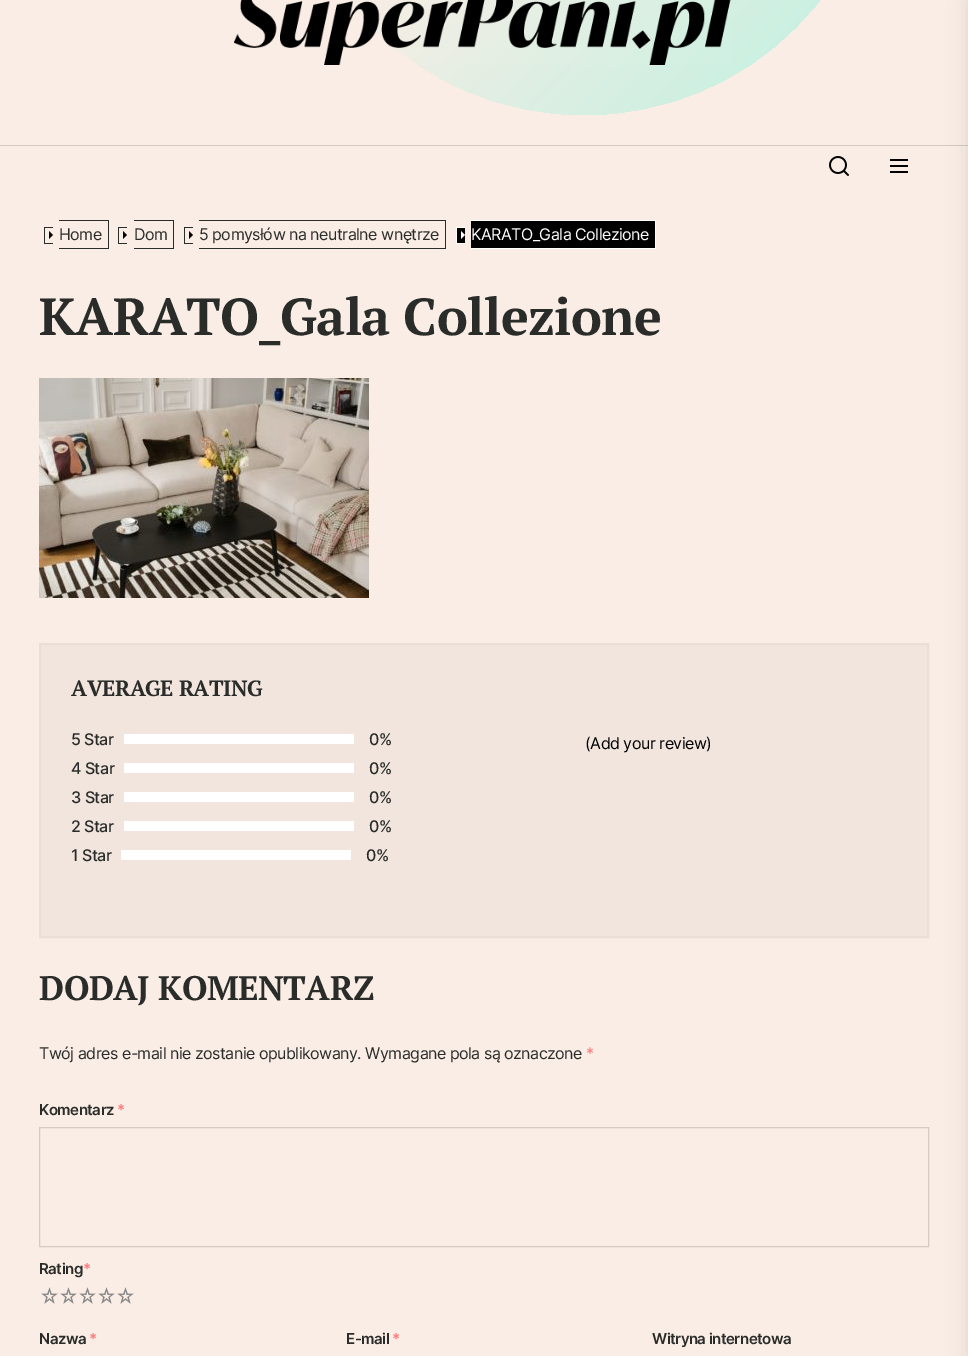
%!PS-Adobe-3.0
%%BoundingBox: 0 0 968 1356
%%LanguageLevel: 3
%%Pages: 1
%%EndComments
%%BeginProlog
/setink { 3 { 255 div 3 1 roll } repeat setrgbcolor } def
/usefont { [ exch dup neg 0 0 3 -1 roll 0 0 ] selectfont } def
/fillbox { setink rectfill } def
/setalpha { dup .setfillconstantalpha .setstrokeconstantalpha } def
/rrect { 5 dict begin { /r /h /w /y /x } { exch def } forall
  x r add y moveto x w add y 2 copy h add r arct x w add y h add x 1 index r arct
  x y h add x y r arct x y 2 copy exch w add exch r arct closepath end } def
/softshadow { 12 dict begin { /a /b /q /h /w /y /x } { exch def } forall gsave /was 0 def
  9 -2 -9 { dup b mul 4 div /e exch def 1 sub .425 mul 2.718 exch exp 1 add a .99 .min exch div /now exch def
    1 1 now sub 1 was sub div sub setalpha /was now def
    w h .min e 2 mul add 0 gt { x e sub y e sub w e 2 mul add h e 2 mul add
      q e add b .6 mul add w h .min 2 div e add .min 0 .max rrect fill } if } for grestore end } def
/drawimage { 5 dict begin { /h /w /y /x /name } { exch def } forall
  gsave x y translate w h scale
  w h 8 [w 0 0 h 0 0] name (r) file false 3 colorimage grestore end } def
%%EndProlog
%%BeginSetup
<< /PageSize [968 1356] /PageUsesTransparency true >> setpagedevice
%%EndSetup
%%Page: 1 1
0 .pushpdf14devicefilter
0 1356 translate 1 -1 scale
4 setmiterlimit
0 0 968 1356 249 237 229 fillbox
gsave 284 -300 600 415 300 rrect clip newpath
<< /ShadingType 2 /ColorSpace /DeviceRGB /Coords [284 -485 884 115] /Extend [true true] /Function << /FunctionType 3 /Domain [0 1] /Functions [<< /FunctionType 2 /Domain [0 1] /C0 [0.976 0.929 0.898] /C1 [0.976 0.929 0.898] /N 1 >> << /FunctionType 2 /Domain [0 1] /C0 [0.976 0.929 0.898] /C1 [0.733 0.949 0.878] /N 1 >>] /Bounds [0.45] /Encode [0 1 0 1] >> >> shfill grestore
(assets/img1.rgb) 234 0 497 65 drawimage
0 145 968 1 212 201 195 fillbox
(assets/img2.rgb) 829 156 20 20 drawimage
(assets/img3.rgb) 890 159 18 14 drawimage
44 227 9 1 42 44 41 fillbox
44 243 9 1 42 44 41 fillbox
44 227 1 17 42 44 41 fillbox
59 220 50 1 42 44 41 fillbox
108 220 1 29 42 44 41 fillbox
59 248 50 1 42 44 41 fillbox
0 0 0 setink
49 239 moveto 49 231 lineto 53 235 lineto closepath fill
/Inter-Regular 16 usefont
42 44 41 setink
59 240 moveto -0.5 0 (Home) ashow
118 227 9 1 42 44 41 fillbox
118 243 9 1 42 44 41 fillbox
118 227 1 17 42 44 41 fillbox
134 220 40 1 42 44 41 fillbox
173 220 1 29 42 44 41 fillbox
134 248 40 1 42 44 41 fillbox
0 0 0 setink
123 239 moveto 123 231 lineto 127 235 lineto closepath fill
42 44 41 setink
134 240 moveto -0.5 0 (Dom) ashow
184 227 9 1 42 44 41 fillbox
184 243 9 1 42 44 41 fillbox
184 227 1 17 42 44 41 fillbox
199 220 247 1 42 44 41 fillbox
445 220 1 29 42 44 41 fillbox
199 248 247 1 42 44 41 fillbox
0 0 0 setink
189 239 moveto 189 231 lineto 193 235 lineto closepath fill
42 44 41 setink
199 240 moveto -0.5 0 (5 pomysłów na neutralne wnętrze) ashow
457 228 8 15 0 0 0 fillbox
456 227 9 1 255 255 255 fillbox
456 243 9 1 255 255 255 fillbox
456 227 1 17 255 255 255 fillbox
471 221 184 27 0 0 0 fillbox
471 220 185 1 255 255 255 fillbox
655 220 1 29 255 255 255 fillbox
471 248 185 1 255 255 255 fillbox
461 239 moveto 461 231 lineto 465 235 lineto closepath fill
471 240 moveto -0.5 0 (KARATO_Gala Collezione) ashow
/PTSerif-Bold 52 usefont
42 44 41 setink
39 335 moveto -0.5 0 (KARATO_Gala Collezione) ashow
(assets/img4.rgb) 39 378 330 220 drawimage
241 229 221 setink
40 644 moveto 928 644 lineto 928 937 lineto 40 937 lineto closepath gsave fill grestore
234 222 214 setink
2 setlinewidth
stroke
/PTSerif-Bold 22 usefont
42 44 41 setink
71 696 moveto -0.5 0 (AVERAGE RATING) ashow
/Inter-Medium 16 usefont
71 745 moveto -0.5 0 (5 Star) ashow
124 734 230 10 255 255 255 fillbox
42 44 41 setink
369 745 moveto -0.5 0 (0%) ashow
71 774 moveto -0.5 0 (4 Star) ashow
124 763 230 10 255 255 255 fillbox
42 44 41 setink
369 774 moveto -0.5 0 (0%) ashow
71 803 moveto -0.5 0 (3 Star) ashow
124 792 230 10 255 255 255 fillbox
42 44 41 setink
369 803 moveto -0.5 0 (0%) ashow
71 832 moveto -0.5 0 (2 Star) ashow
124 821 230 10 255 255 255 fillbox
42 44 41 setink
369 832 moveto -0.5 0 (0%) ashow
71 861 moveto -0.5 0 (1 Star) ashow
121 850 230 10 255 255 255 fillbox
42 44 41 setink
366 861 moveto -0.5 0 (0%) ashow
/Inter-Regular 16 usefont
0 0 0 setink
585 749 moveto -0.5 0 (\(Add your review\)) ashow
/PTSerif-Bold 34 usefont
42 44 41 setink
39 1000 moveto -0.5 0 (DODAJ KOMENTARZ) ashow
/Inter-Regular 16 usefont
39 1059 moveto -0.5 0 (Twój adres e-mail nie zostanie opublikowany. Wymagane pola są oznaczone) ashow
255 121 121 setink
586 1059 moveto -0.5 0 (*) ashow
/Inter-SemiBold 15 usefont
42 44 41 setink
39 1115 moveto -0.5 0 (Komentarz) ashow
255 121 121 setink
117 1115 moveto -0.5 0 (*) ashow
212 201 195 setink
1 setlinewidth
39.5 1127.5 889 119 rectstroke
42 44 41 setink
39 1274 moveto -0.5 0 (Rating) ashow
255 121 121 setink
83 1274 moveto -0.5 0 (*) ashow
(assets/img5.rgb) 41 1287 17 17 drawimage
(assets/img5.rgb) 60 1287 17 17 drawimage
(assets/img5.rgb) 79 1287 17 17 drawimage
(assets/img5.rgb) 98 1287 17 17 drawimage
(assets/img5.rgb) 117 1287 17 17 drawimage
42 44 41 setink
39 1344 moveto -0.5 0 (Nazwa) ashow
255 121 121 setink
89 1344 moveto -0.5 0 (*) ashow
42 44 41 setink
346 1344 moveto -0.5 0 (E-mail) ashow
255 121 121 setink
392 1344 moveto -0.5 0 (*) ashow
42 44 41 setink
652 1344 moveto -0.5 0 (Witryna internetowa) ashow
0 0 0 setink
968 0 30 1356 0 10 0.1 softshadow
.poppdf14devicefilter showpage
%%EOF
